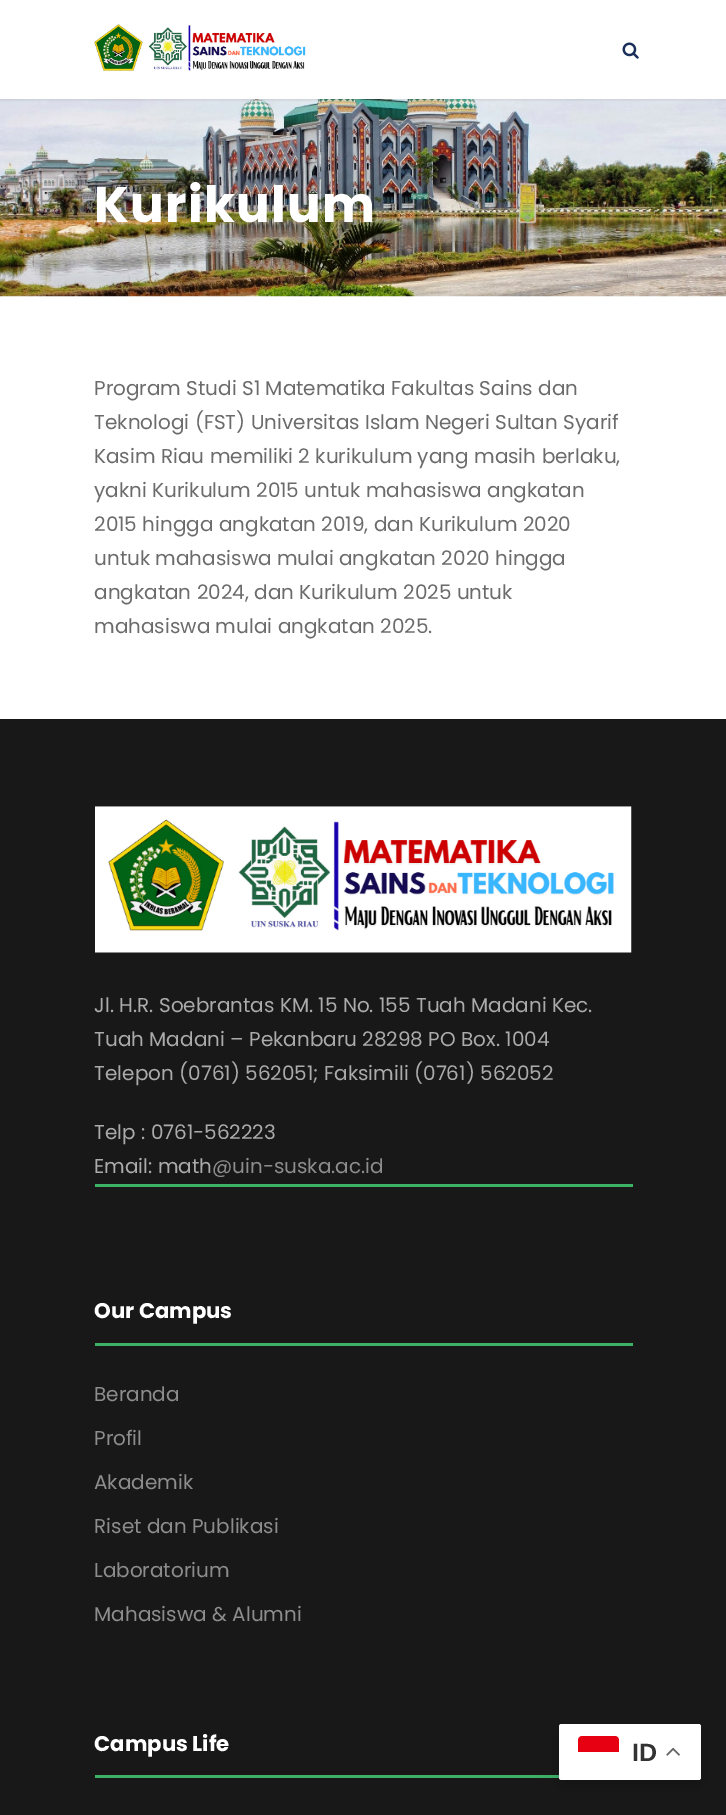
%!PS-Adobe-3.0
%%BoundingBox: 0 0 726 1815
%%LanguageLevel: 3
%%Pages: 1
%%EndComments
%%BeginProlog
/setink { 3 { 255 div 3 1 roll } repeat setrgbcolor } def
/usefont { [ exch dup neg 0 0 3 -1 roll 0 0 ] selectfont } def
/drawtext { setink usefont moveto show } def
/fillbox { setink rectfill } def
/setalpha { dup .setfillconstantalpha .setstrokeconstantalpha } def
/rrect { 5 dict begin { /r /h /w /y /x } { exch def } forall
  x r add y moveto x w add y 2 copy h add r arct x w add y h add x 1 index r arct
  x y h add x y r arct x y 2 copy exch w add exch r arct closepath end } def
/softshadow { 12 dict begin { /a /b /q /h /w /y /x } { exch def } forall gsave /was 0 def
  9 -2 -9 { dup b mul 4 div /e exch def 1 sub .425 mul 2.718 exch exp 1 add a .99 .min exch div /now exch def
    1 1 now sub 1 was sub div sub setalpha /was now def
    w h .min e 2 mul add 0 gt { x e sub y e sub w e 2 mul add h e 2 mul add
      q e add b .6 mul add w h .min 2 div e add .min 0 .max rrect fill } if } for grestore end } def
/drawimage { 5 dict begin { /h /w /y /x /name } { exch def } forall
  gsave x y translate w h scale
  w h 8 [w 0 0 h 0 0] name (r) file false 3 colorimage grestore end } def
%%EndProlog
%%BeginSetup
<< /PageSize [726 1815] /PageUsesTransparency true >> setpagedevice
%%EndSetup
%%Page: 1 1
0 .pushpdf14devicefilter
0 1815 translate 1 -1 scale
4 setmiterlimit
0 0 726 1815 255 255 255 fillbox
(assets/img3.rgb) 0 99 726 198 drawimage
0 0 0 setink
0 1 726 99 0 1 0.1 softshadow
0 0 726 99 255 255 255 fillbox
(assets/img1.rgb) 94 24 212 47 drawimage
(assets/img2.rgb) 622 42 17 17 drawimage
/Poppins-Bold 50 usefont
94 222 moveto 1.25 0 (Kurikulum) ashow
(Program Studi S1 Matematika Fakultas Sains dan) 94 395 /Poppins-Regular 20 107 107 107 drawtext
(Teknologi \(FST\) Universitas Islam Negeri Sultan Syarif) 94 429 /Poppins-Regular 20 107 107 107 drawtext
(Kasim Riau memiliki 2 kurikulum yang masih berlaku,) 94 463 /Poppins-Regular 20 107 107 107 drawtext
(yakni Kurikulum 2015 untuk mahasiswa angkatan) 94 497 /Poppins-Regular 20 107 107 107 drawtext
(2015 hingga angkatan 2019, dan Kurikulum 2020) 94 531 /Poppins-Regular 20 107 107 107 drawtext
(untuk mahasiswa mulai angkatan 2020 hingga) 94 565 /Poppins-Regular 20 107 107 107 drawtext
(angkatan 2024, dan Kurikulum 2025 untuk) 94 599 /Poppins-Regular 20 107 107 107 drawtext
(mahasiswa mulai angkatan 2025.) 94 633 /Poppins-Regular 20 107 107 107 drawtext
0 719 726 1096 24 24 24 fillbox
(assets/img4.rgb) 95 806 537 147 drawimage
(Jl. H.R. Soebrantas KM. 15 No. 155 Tuah Madani Kec.) 94 1012 /Poppins-Regular 20 171 171 171 drawtext
(Tuah Madani – Pekanbaru 28298 PO Box. 1004) 94 1046 /Poppins-Regular 20 171 171 171 drawtext
(Telepon \(0761\) 562051; Faksimili \(0761\) 562052) 94 1080 /Poppins-Regular 20 171 171 171 drawtext
(Telp : 0761-562223) 94 1139 /Poppins-Regular 20 171 171 171 drawtext
(Email: math) 94 1173 /Poppins-Regular 20 171 171 171 drawtext
(@uin-suska.ac.id) 212 1173 /Poppins-Regular 20 141 141 141 drawtext
95 1184 538 3 61 177 102 fillbox
95 1343 538 3 61 177 102 fillbox
(Our Campus) 94 1318 /Poppins-Bold 21.25 255 255 255 drawtext
(Beranda) 94 1401 /Poppins-Regular 20 141 141 141 drawtext
(Profil) 94 1445 /Poppins-Regular 20 141 141 141 drawtext
(Akademik) 94 1489 /Poppins-Regular 20 141 141 141 drawtext
(Riset dan Publikasi) 94 1533 /Poppins-Regular 20 141 141 141 drawtext
(Laboratorium) 94 1577 /Poppins-Regular 20 141 141 141 drawtext
(Mahasiswa & Alumni) 94 1621 /Poppins-Regular 20 141 141 141 drawtext
95 1775 465 3 61 177 102 fillbox
(Campus Life) 94 1751 /Poppins-Bold 21.25 255 255 255 drawtext
0 0 0 setink
559 1730 142 56 2.5 9.5 0.15 softshadow
255 255 255 setink
559 1724 142 56 2.5 rrect fill
231 0 17 setink
582 1736 moveto 615 1736 lineto 617 1736 619 1738 619 1740 curveto 619 1752 lineto 578 1752 lineto 578 1740 lineto 578 1738 580 1736 582 1736 curveto closepath fill
(ID) 632 1761 /LiberationSans-Bold 25 51 51 51 drawtext
(assets/img5.rgb) 666 1747 14 9 drawimage
.poppdf14devicefilter showpage
%%EOF
